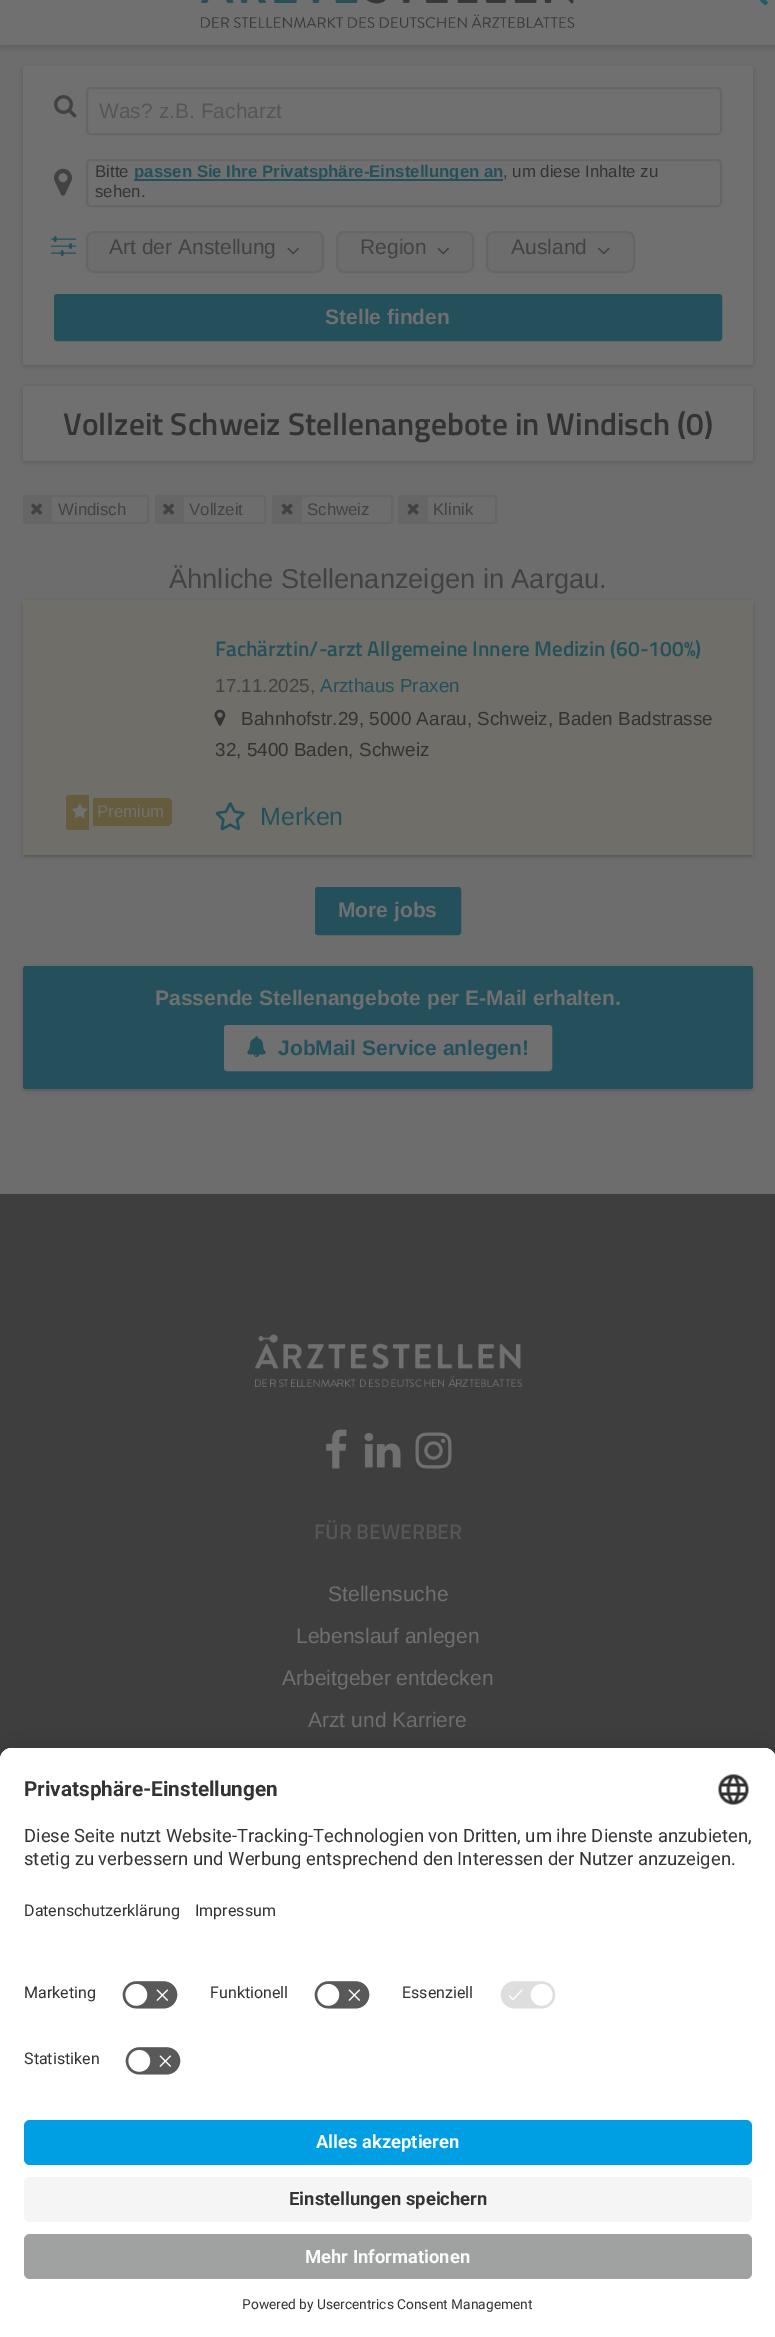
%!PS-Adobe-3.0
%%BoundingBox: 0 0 775 2337
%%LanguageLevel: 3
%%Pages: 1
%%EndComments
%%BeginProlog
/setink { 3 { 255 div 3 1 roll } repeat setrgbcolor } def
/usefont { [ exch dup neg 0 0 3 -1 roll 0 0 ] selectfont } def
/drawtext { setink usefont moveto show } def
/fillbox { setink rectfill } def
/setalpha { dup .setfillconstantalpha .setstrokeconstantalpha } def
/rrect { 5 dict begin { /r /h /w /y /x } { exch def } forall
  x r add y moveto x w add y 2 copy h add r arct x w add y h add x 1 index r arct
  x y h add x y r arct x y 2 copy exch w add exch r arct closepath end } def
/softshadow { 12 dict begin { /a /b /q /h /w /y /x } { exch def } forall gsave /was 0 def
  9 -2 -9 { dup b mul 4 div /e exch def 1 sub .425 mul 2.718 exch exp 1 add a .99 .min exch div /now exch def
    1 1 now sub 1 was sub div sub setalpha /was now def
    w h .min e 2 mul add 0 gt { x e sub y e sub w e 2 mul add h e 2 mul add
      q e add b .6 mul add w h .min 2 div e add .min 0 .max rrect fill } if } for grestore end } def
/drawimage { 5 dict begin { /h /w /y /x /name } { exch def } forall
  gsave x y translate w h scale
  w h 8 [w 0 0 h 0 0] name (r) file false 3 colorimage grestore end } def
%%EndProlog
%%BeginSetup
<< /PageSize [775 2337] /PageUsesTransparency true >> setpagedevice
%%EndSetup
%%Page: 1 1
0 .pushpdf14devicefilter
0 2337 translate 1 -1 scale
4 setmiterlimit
0 0 775 2337 109 109 109 fillbox
79 79 79 setink
0 -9 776 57 0 3 0.5 softshadow
0 0 775 45 112 112 112 fillbox
(assets/img1.rgb) 201 0 374 28 drawimage
(assets/img2.rgb) 759 0 9 6 drawimage
36 36 36 setink
23 68 730 298 3 2 0.25 softshadow
112 112 112 setink
23 66 730 299 3 rrect fill
(assets/img3.rgb) 54 95 23 23 drawimage
102 102 102 setink
2 setlinewidth
87 88 634 46 4 rrect stroke
(Was? z.B. Facharzt) 99 118 /LiberationSans-Regular 21 86 86 86 drawtext
(assets/img4.rgb) 54 168 18 28 drawimage
102 102 102 setink
87 160 634 46 4 rrect stroke
(Bitte) 95 177 /LiberationSans-Regular 16.8 51 51 51 drawtext
134 179 369 2 36 80 91 fillbox
(passen Sie Ihre Privatsphäre-Einstellungen an) 134 177 /LiberationSans-Bold 16.8 36 80 91 drawtext
(, um diese Inhalte zu) 503 177 /LiberationSans-Regular 16.8 51 51 51 drawtext
(sehen.) 95 197 /LiberationSans-Regular 16.8 51 51 51 drawtext
(assets/img5.rgb) 51 236 25 20 drawimage
109 109 109 setink
87 232 236 40 7 rrect gsave fill grestore
102 102 102 setink
stroke
(Art der Anstellung) 109 254 /LiberationSans-Regular 21 66 66 66 drawtext
(assets/img6.rgb) 287 247 12 8 drawimage
109 109 109 setink
337 232 136 40 7 rrect gsave fill grestore
102 102 102 setink
stroke
(Region) 360 254 /LiberationSans-Regular 21 66 66 66 drawtext
(assets/img6.rgb) 437 247 12 8 drawimage
109 109 109 setink
487 232 147 40 7 rrect gsave fill grestore
102 102 102 setink
stroke
(Ausland) 511 254 /LiberationSans-Regular 21 66 66 66 drawtext
(assets/img7.rgb) 598 247 12 8 drawimage
36 80 91 setink
55 295 666 45 2 rrect gsave fill grestore
stroke
(Stelle finden) 325 324 /LiberationSans-Bold 21 112 112 112 drawtext
36 36 36 setink
23 387 730 75 3 2 0.25 softshadow
112 112 112 setink
23 386 730 75 3 rrect fill
(Vollzeit Schweiz Stellenangebote in Windisch \(0\)) 63 435 /TitilliumWeb-SemiBold 31.5 51 51 51 drawtext
102 102 102 setink
24 496 124 27 2 rrect stroke
25 497 27 25 102 102 102 fillbox
(assets/img8.rgb) 31 503 12 12 drawimage
(Windisch) 58 515 /LiberationSans-Regular 16.8 66 66 66 drawtext
102 102 102 setink
156 496 109 27 2 rrect stroke
157 497 27 25 102 102 102 fillbox
(assets/img8.rgb) 163 503 12 12 drawimage
(Vollzeit) 189 515 /LiberationSans-Regular 16.8 66 66 66 drawtext
102 102 102 setink
273 496 119 27 2 rrect stroke
274 497 28 25 102 102 102 fillbox
(assets/img9.rgb) 281 503 12 12 drawimage
(Schweiz) 307 515 /LiberationSans-Regular 16.8 66 66 66 drawtext
102 102 102 setink
399 496 97 27 2 rrect stroke
400 497 28 25 102 102 102 fillbox
(assets/img9.rgb) 407 503 12 12 drawimage
(Klinik) 433 515 /LiberationSans-Regular 16.8 66 66 66 drawtext
(Ähnliche Stellenanzeigen in Aargau.) 169 588 /LiberationSans-Regular 27.25 66 66 66 drawtext
36 36 36 setink
23 602 730 255 3 2 0.25 softshadow
23 600 730 255 111 110 104 fillbox
101 92 61 setink
69 795 moveto 89 795 lineto 89 830 lineto 69 830 lineto 67.5 830 66 828.5 66 827 curveto 66 798 lineto 66 796.5 67.5 795 69 795 curveto closepath fill
68 795 1 1 101 92 61 fillbox
68 829 1 1 101 92 61 fillbox
66 797 1 31 101 92 61 fillbox
93 798 moveto 168 798 lineto 169.5 798 171 799.5 171 801 curveto 171 822 lineto 171 823.5 169.5 825 168 825 curveto 93 825 lineto closepath fill
168 798 2 1 101 92 61 fillbox
170 800 2 24 101 92 61 fillbox
93 824 77 2 101 92 61 fillbox
(assets/img10.rgb) 72 803 16 16 drawimage
(Premium) 97 817 /LiberationSans-Regular 16.8 112 112 112 drawtext
(Fachärztin/-arzt Allgemeine Innere Medizin \(60-100%\)) 215 656 /TitilliumWeb-SemiBold 21 36 80 91 drawtext
(17.11.2025,) 215 692 /LiberationSans-Regular 18.9 66 66 66 drawtext
(Arzthaus Praxen) 320 692 /LiberationSans-Regular 18.9 36 80 91 drawtext
(assets/img11.rgb) 214 709 12 17 drawimage
(Bahnhofstr.29, 5000 Aarau, Schweiz, Baden Badstrasse) 241 725 /LiberationSans-Regular 18.9 51 51 51 drawtext
(32, 5400 Baden, Schweiz) 215 756 /LiberationSans-Regular 18.9 51 51 51 drawtext
(assets/img12.rgb) 215 802 30 29 drawimage
(Merken) 260 825 /LiberationSans-Regular 25 36 80 91 drawtext
316 888 144 46 2 rrect gsave fill grestore
stroke
(More jobs) 338 917 /LiberationSans-Bold 21 112 112 112 drawtext
36 36 36 setink
23 968 730 123 3 2 0.25 softshadow
36 80 91 setink
23 966 730 123 3 rrect fill
(Passende Stellenangebote per E-Mail erhalten.) 155 1005 /LiberationSans-Bold 21 112 112 112 drawtext
225 1026 326 44 2 rrect gsave fill grestore
stroke
(assets/img13.rgb) 247 1036 19 21 drawimage
(JobMail Service anlegen!) 278 1055 /LiberationSans-Bold 21 36 80 91 drawtext
0 1194 775 566 62 62 62 fillbox
(assets/img14.rgb) 255 1334 267 53 drawimage
(assets/img15.rgb) 326 1429 21 40 drawimage
(assets/img16.rgb) 364 1433 37 35 drawimage
(assets/img17.rgb) 415 1432 37 37 drawimage
(FÜR BEWERBER) 314 1539 /TitilliumWeb-SemiBold 21 86 86 86 drawtext
(Stellensuche) 328 1601 /LiberationSans-Regular 21 112 112 112 drawtext
(Lebenslauf anlegen) 296 1643 /LiberationSans-Regular 21 112 112 112 drawtext
(Arbeitgeber entdecken) 282 1685 /LiberationSans-Regular 21 112 112 112 drawtext
(Arzt und Karriere) 308 1727 /LiberationSans-Regular 21 112 112 112 drawtext
0 0 0 setink
0 1755 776 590 12 19.5 0.22 softshadow
255 255 255 setink
12 1748 moveto 764 1748 lineto 770.5 1748 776 1753.5 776 1760 curveto 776 2337 lineto 0 2337 lineto 0 1760 lineto 0 1753.5 5.5 1748 12 1748 curveto closepath fill
12 1748 moveto 764 1748 lineto 770.5 1748 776 1753.5 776 1760 curveto 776 2102 lineto 0 2102 lineto 0 1760 lineto 0 1753.5 5.5 1748 12 1748 curveto closepath fill
12 1748 moveto 764 1748 lineto 770.5 1748 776 1753.5 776 1760 curveto 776 1970 lineto 0 1970 lineto 0 1760 lineto 0 1753.5 5.5 1748 12 1748 curveto closepath fill
(Privatsphäre-Einstellungen) 24 1796 /Roboto-Bold 20.75 51 51 51 drawtext
(assets/img18.rgb) 718 1774 31 31 drawimage
(Diese Seite nutzt Website-Tracking-Technologien von Dritten, um ihre Dienste anzubieten,) 24 1842 /Roboto-Regular 18.4 51 51 51 drawtext
(stetig zu verbessern und Werbung entsprechend den Interessen der Nutzer anzuzeigen.) 24 1865 /Roboto-Regular 18.4 51 51 51 drawtext
(Datenschutzerklärung) 24 1916 /Roboto-Regular 16 51 51 51 drawtext
(Impressum) 195 1916 /Roboto-Regular 16 51 51 51 drawtext
(Marketing) 24 1998 /Roboto-Regular 16 51 51 51 drawtext
(assets/img19.rgb) 122 1981 56 28 drawimage
(Funktionell) 210 1998 /Roboto-Regular 16 51 51 51 drawtext
(assets/img19.rgb) 314 1981 56 28 drawimage
(Essenziell) 402 1998 /Roboto-Regular 16 51 51 51 drawtext
(assets/img20.rgb) 500 1981 56 28 drawimage
(Statistiken) 24 2064 /Roboto-Regular 16 51 51 51 drawtext
(assets/img19.rgb) 125 2047 56 28 drawimage
0 158 227 setink
24 2120 728 45 6 rrect fill
(Alles akzeptieren) 316 2148 /Roboto-Bold 18.4 250 250 250 drawtext
245 245 245 setink
24 2177 728 45 6 rrect fill
(Einstellungen speichern) 289 2205 /Roboto-Bold 18.4 51 51 51 drawtext
160 161 161 setink
24 2234 728 45 6 rrect fill
(Mehr Informationen) 305 2263 /Roboto-Bold 18.4 250 250 250 drawtext
(Powered by Usercentrics Consent Management) 242 2309 /Roboto-Regular 13.75 51 51 51 drawtext
.poppdf14devicefilter showpage
%%EOF
